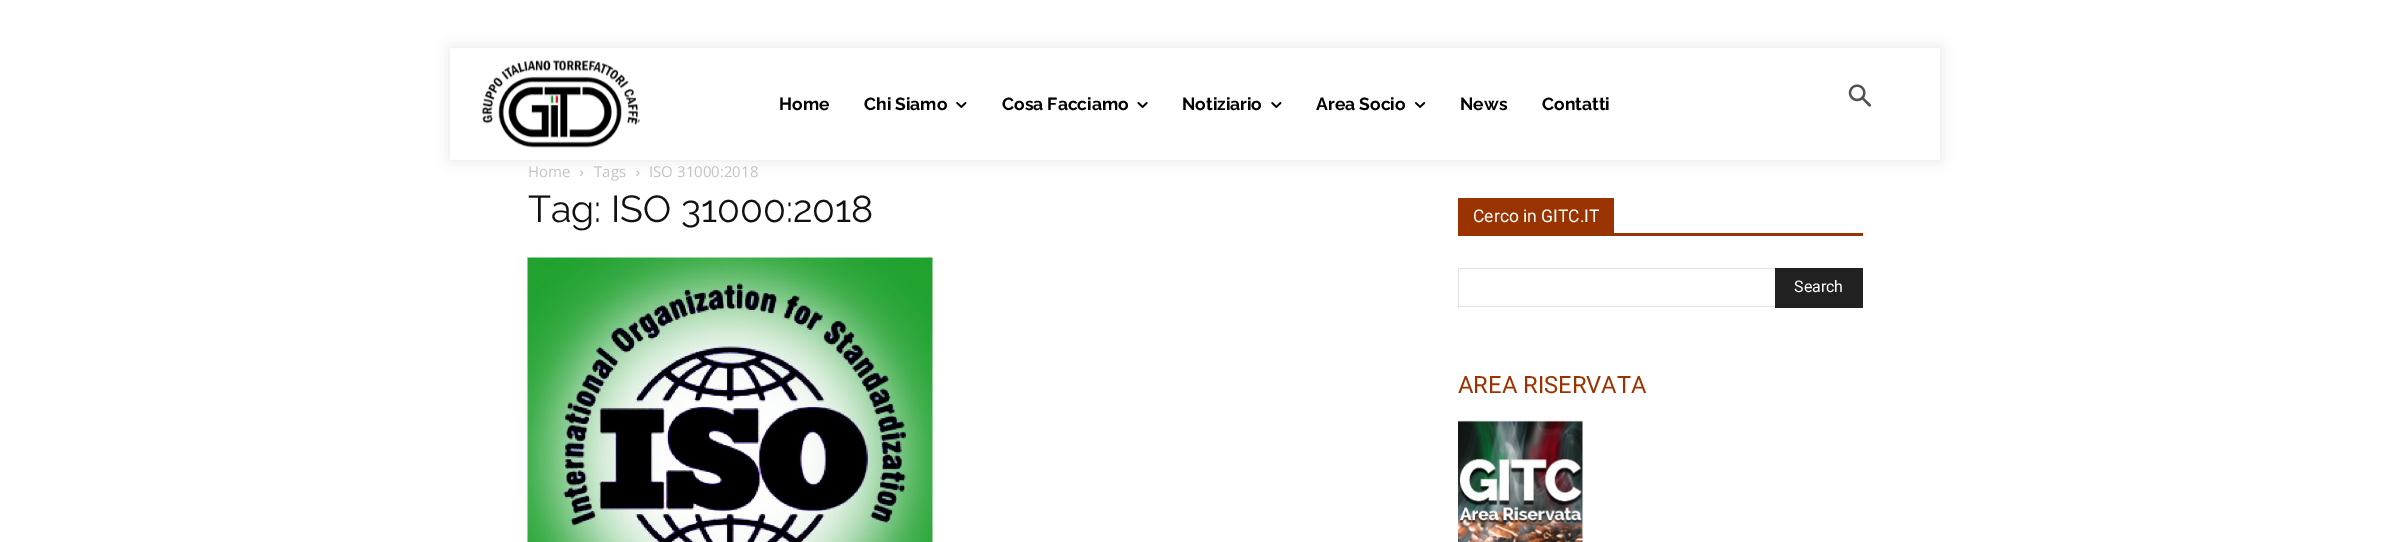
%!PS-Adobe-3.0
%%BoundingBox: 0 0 2389 542
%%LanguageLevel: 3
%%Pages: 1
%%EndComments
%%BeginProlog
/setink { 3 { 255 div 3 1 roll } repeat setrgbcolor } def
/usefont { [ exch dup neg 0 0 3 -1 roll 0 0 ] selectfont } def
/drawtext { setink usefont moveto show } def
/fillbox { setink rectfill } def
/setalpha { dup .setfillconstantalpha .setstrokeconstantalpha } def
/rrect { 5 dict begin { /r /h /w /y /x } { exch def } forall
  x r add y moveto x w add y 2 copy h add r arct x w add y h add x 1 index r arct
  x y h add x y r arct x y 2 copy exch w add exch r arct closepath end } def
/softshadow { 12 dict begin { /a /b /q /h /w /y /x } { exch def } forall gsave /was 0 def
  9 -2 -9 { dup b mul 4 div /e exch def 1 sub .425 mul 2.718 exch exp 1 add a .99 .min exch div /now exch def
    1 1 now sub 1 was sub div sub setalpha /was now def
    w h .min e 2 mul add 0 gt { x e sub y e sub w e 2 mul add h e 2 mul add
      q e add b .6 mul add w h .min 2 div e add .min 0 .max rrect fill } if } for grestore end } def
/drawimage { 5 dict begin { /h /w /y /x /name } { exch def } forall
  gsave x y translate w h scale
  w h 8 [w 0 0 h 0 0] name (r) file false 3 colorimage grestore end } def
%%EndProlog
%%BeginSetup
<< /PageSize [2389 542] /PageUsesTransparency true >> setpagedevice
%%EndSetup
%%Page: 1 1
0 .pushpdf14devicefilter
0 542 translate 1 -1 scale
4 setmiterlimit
0 0 2389 542 255 255 255 fillbox
(assets/img6.rgb) 580 170 4 6 drawimage
(assets/img7.rgb) 636 170 4 6 drawimage
gsave
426 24 moveto 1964 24 lineto 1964 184 lineto 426 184 lineto closepath 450 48 moveto 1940 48 lineto 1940 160 lineto 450 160 lineto closepath eoclip newpath
0 0 0 setink
450 48 1490 112 0 7.5 0.1 softshadow
grestore
(assets/img1.rgb) 482 60 158 88 drawimage
(Home) 779 110 /Raleway-Bold 17.5 0 0 0 drawtext
(Chi Siamo) 864 110 /Raleway-Bold 17.5 0 0 0 drawtext
(assets/img2.rgb) 956 102 11 6 drawimage
(Cosa Facciamo) 1002 110 /Raleway-Bold 17.5 0 0 0 drawtext
(assets/img3.rgb) 1137 102 11 6 drawimage
(Notiziario) 1182 110 /Raleway-Bold 17.5 0 0 0 drawtext
(assets/img2.rgb) 1271 102 11 6 drawimage
(Area Socio) 1316 110 /Raleway-Bold 17.5 0 0 0 drawtext
(assets/img4.rgb) 1415 102 11 6 drawimage
(News) 1460 110 /Raleway-Bold 17.5 0 0 0 drawtext
(Contatti) 1542 110 /Raleway-Bold 17.5 0 0 0 drawtext
(assets/img5.rgb) 1848 84 23 23 drawimage
(Home) 528 177 /OpenSans-Regular 15 195 195 195 drawtext
(Tags) 594 177 /OpenSans-Regular 15 195 195 195 drawtext
(ISO 31000:2018) 649 177 /OpenSans-Regular 15 195 195 195 drawtext
(Tag: ISO 31000:2018) 528 222 /Raleway-Regular 37.5 17 17 17 drawtext
(assets/img8.rgb) 527 257 406 285 drawimage
1458 233 405 3 153 51 0 fillbox
1458 198 156 35 153 51 0 fillbox
(Cerco in GITC.IT) 1473 222 /Roboto-Regular 17.5 255 255 255 drawtext
1458 268 317 1 225 225 225 fillbox
1458 306 317 1 225 225 225 fillbox
1458 268 1 40 225 225 225 fillbox
1775 268 88 40 34 34 34 fillbox
(Search) 1794 292 /Roboto-Regular 16 255 255 255 drawtext
(AREA RISERVATA) 1458 393 /Roboto-Regular 23.75 153 51 0 drawtext
(assets/img9.rgb) 1458 420 125 122 drawimage
.poppdf14devicefilter showpage
%%EOF
